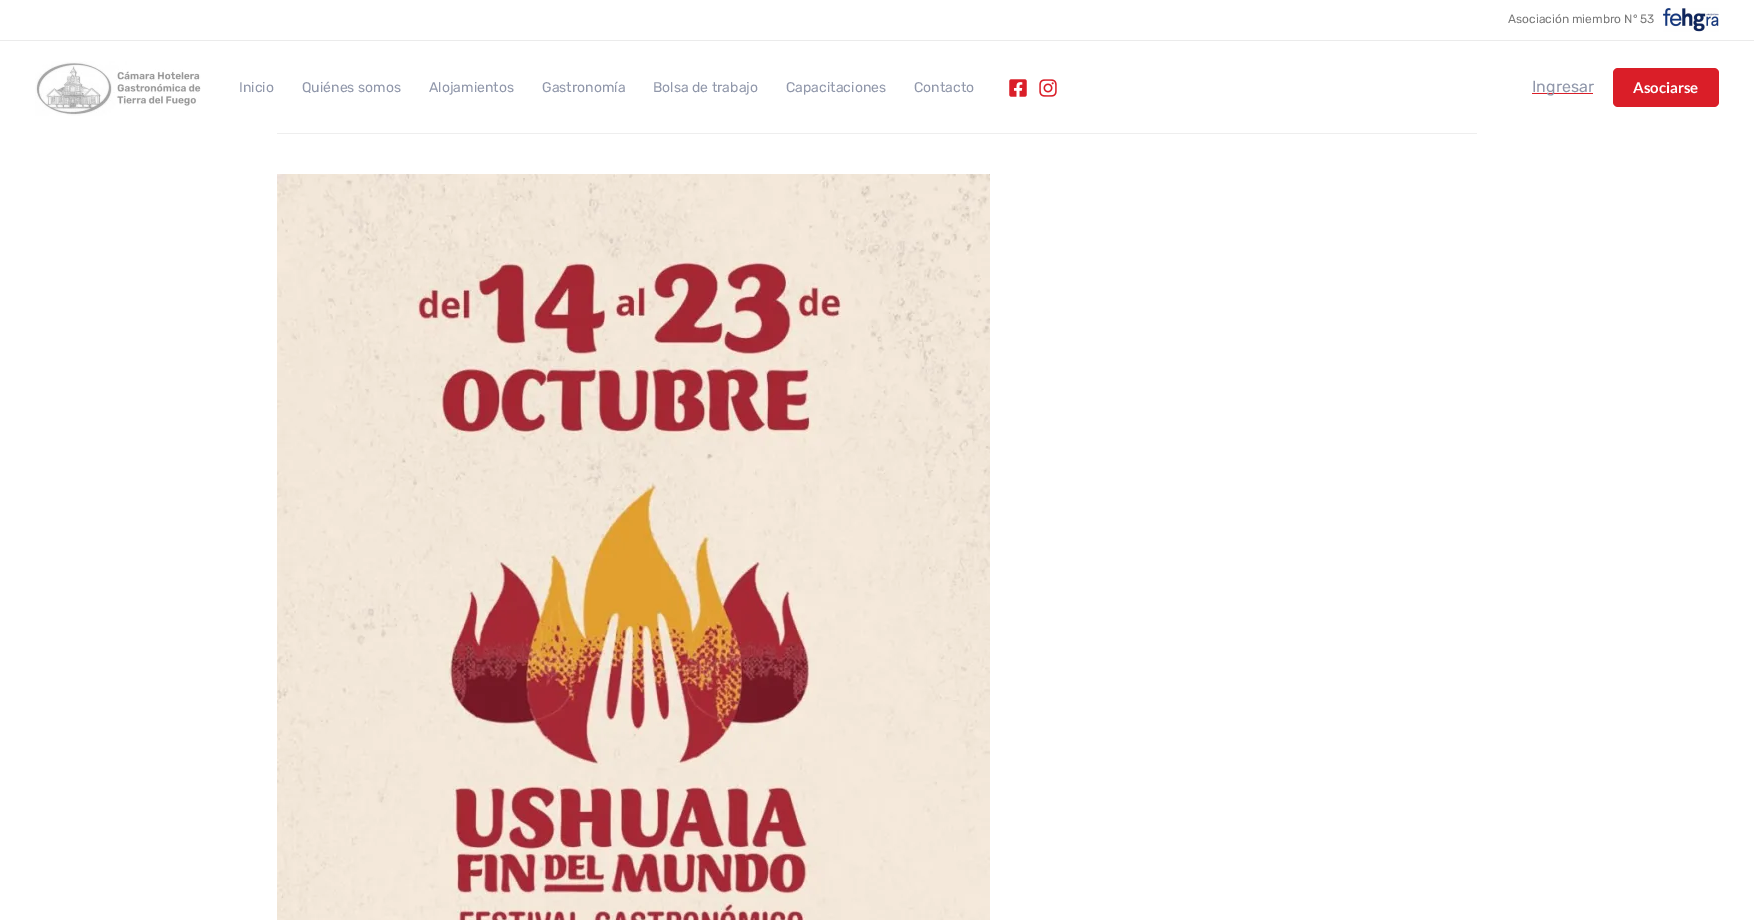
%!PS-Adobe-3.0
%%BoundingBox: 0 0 1754 920
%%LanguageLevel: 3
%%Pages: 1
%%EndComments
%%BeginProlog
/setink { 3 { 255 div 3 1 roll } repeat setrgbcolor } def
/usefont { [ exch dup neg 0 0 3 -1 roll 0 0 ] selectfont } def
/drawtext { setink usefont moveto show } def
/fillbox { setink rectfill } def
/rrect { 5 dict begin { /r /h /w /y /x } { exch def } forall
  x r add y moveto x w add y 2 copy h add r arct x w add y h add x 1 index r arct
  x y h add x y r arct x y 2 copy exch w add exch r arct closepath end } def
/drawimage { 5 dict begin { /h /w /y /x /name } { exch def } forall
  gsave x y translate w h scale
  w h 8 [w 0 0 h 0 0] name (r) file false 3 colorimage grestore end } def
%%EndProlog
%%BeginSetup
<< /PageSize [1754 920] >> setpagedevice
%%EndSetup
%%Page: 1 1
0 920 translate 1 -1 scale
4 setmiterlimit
0 0 1754 920 255 255 255 fillbox
0 40 1754 1 235 235 235 fillbox
(Asociación miembro N° 53) 1508 23 /Rubik-Light 12 121 121 121 drawtext
(assets/img1.rgb) 1663 8 56 24 drawimage
(assets/img2.rgb) 35 61 166 55 drawimage
(Inicio) 239 92 /Rubik-Light 14 144 151 170 drawtext
(Quiénes somos) 302 92 /Rubik-Light 14 144 151 170 drawtext
(Alojamientos) 429 92 /Rubik-Light 14 144 151 170 drawtext
(Gastronomía) 542 92 /Rubik-Light 14 144 151 170 drawtext
(Bolsa de trabajo) 653 92 /Rubik-Light 14 144 151 170 drawtext
(Capacitaciones) 786 92 /Rubik-Light 14 144 151 170 drawtext
(Contacto) 914 92 /Rubik-Light 14 144 151 170 drawtext
(assets/img3.rgb) 1009 79 18 18 drawimage
(assets/img4.rgb) 1039 79 18 18 drawimage
1532 93 61 1 218 30 40 fillbox
(Ingresar) 1532 92 /Rubik-Light 16 144 151 170 drawtext
218 30 40 setink
1613 68 106 39 5 rrect fill
(Asociarse) 1633 93 /Lato-Bold 15 255 255 255 drawtext
277 133 1200 1 238 238 238 fillbox
(assets/img5.rgb) 277 174 713 746 drawimage
showpage
%%EOF
